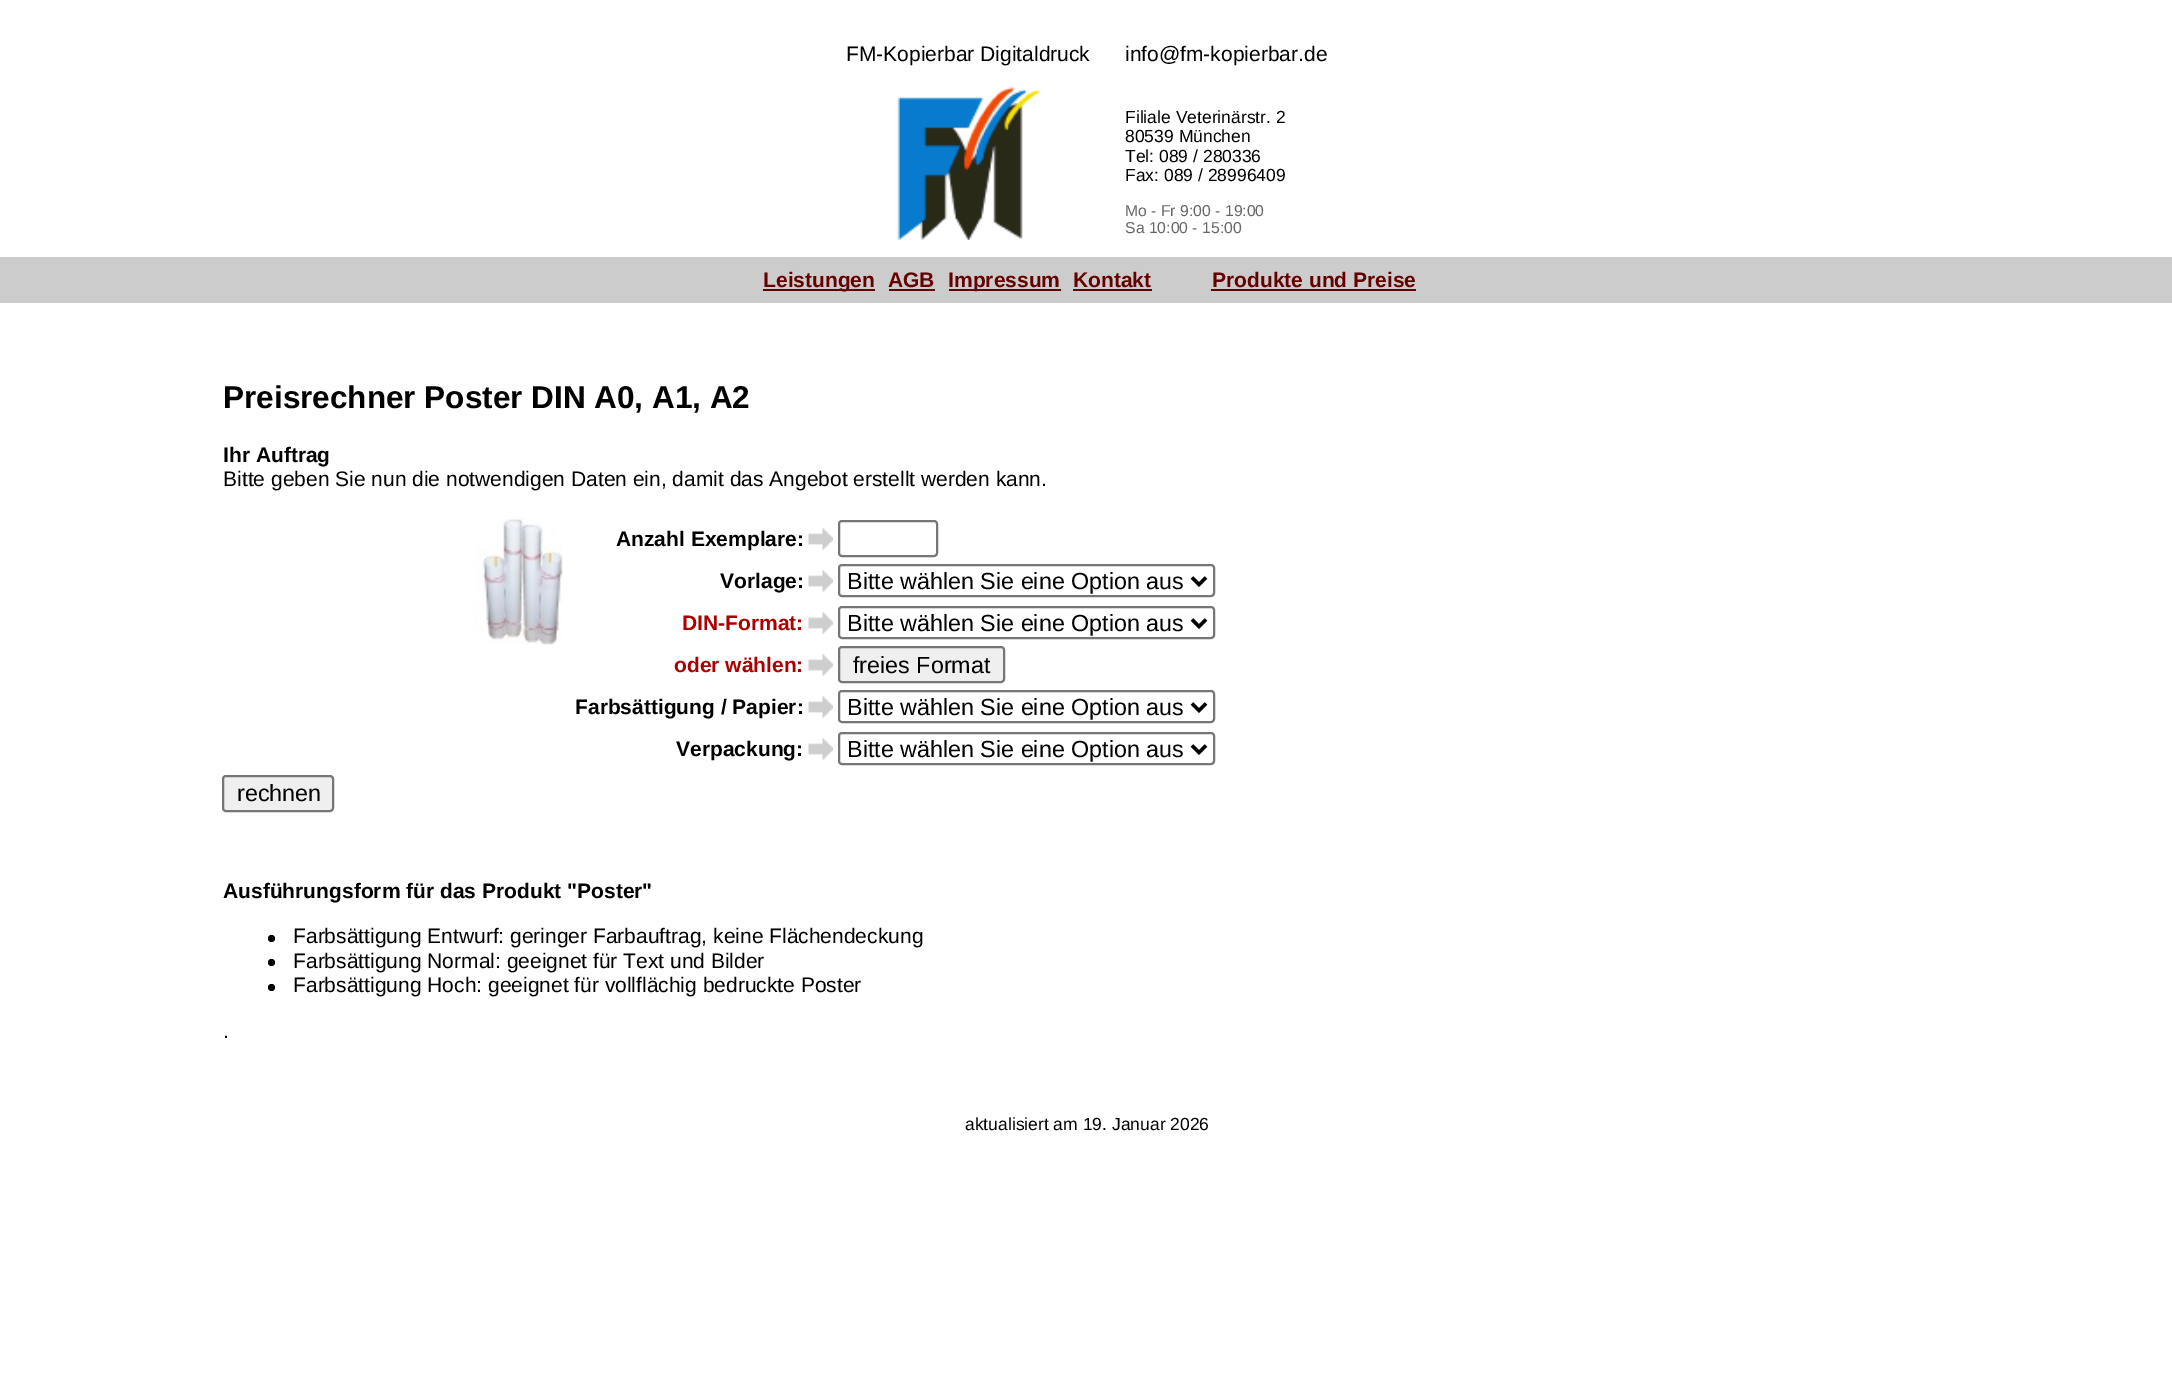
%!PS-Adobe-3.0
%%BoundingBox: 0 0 2172 1383
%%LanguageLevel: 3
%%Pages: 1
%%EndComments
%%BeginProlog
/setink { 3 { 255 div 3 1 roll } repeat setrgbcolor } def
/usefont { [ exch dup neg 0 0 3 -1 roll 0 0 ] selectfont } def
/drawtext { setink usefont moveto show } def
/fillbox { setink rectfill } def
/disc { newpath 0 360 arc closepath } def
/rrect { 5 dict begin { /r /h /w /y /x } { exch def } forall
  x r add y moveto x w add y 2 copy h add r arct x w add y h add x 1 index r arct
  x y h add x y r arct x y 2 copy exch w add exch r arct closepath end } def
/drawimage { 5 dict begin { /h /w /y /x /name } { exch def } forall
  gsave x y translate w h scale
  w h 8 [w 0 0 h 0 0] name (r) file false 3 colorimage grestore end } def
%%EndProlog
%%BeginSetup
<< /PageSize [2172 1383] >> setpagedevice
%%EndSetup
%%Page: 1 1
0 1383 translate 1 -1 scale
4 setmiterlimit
0 0 2172 1383 255 255 255 fillbox
(FM-Kopierbar Digitaldruck) 846 61 /LiberationSans-Regular 21 0 0 0 drawtext
(assets/img1.rgb) 897 87 143 153 drawimage
(info@fm-kopierbar.de) 1125 61 /LiberationSans-Regular 21 0 0 0 drawtext
(Filiale Veterinärstr. 2) 1125 123 /LiberationSans-Regular 17.5 0 0 0 drawtext
(80539 München) 1125 142 /LiberationSans-Regular 17.5 0 0 0 drawtext
(Tel: 089 / 280336) 1125 162 /LiberationSans-Regular 17.5 0 0 0 drawtext
(Fax: 089 / 28996409) 1125 181 /LiberationSans-Regular 17.5 0 0 0 drawtext
(Mo - Fr 9:00 - 19:00) 1125 216 /LiberationSans-Regular 15.75 102 102 102 drawtext
(Sa 10:00 - 15:00) 1125 233 /LiberationSans-Regular 15.75 102 102 102 drawtext
0 257 2172 46 204 204 204 fillbox
763 289 112 2 102 0 0 fillbox
(Leistungen) 763 287 /LiberationSans-Bold 21 102 0 0 drawtext
(AGB) 888 287 /LiberationSans-Bold 21 102 0 0 drawtext
889 289 46 2 102 0 0 fillbox
949 289 112 2 102 0 0 fillbox
(Impressum) 948 287 /LiberationSans-Bold 21 102 0 0 drawtext
(Kontakt) 1073 287 /LiberationSans-Bold 21 102 0 0 drawtext
1073 289 79 2 102 0 0 fillbox
(Produkte und Preise) 1212 287 /LiberationSans-Bold 21 102 0 0 drawtext
1211 289 205 2 102 0 0 fillbox
(Preisrechner Poster DIN A0, A1, A2) 223 408 /LiberationSans-Bold 31.5 0 0 0 drawtext
(Ihr Auftrag) 223 462 /LiberationSans-Bold 21 0 0 0 drawtext
(Bitte geben Sie nun die notwendigen Daten ein, damit das Angebot erstellt werden kann.) 223 486 /LiberationSans-Regular 21 0 0 0 drawtext
(assets/img2.rgb) 474 519 89 126 drawimage
(Anzahl Exemplare:) 616 546 /LiberationSans-Bold 21 0 0 0 drawtext
(assets/img3.rgb) 808 528 25 22 drawimage
118 118 118 setink
2 setlinewidth
839 521 98 35 3 rrect stroke
(Vorlage:) 720 588 /LiberationSans-Bold 21 0 0 0 drawtext
(assets/img3.rgb) 808 570 25 22 drawimage
118 118 118 setink
839 565 375 31 3 rrect stroke
0 0 0 setink
3.5 setlinewidth
1192 577.5 moveto 1199 584.5 lineto 1206 577.5 lineto stroke
(Bitte wählen Sie eine Option aus) 847 589 /LiberationSans-Regular 23.3 0 0 0 drawtext
(DIN-Format:) 682 630 /LiberationSans-Bold 21 170 0 0 drawtext
(assets/img3.rgb) 808 612 25 22 drawimage
118 118 118 setink
2 setlinewidth
839 607 375 31 3 rrect stroke
0 0 0 setink
3.5 setlinewidth
1192 619.5 moveto 1199 626.5 lineto 1206 619.5 lineto stroke
(Bitte wählen Sie eine Option aus) 847 631 /LiberationSans-Regular 23.3 0 0 0 drawtext
(oder wählen:) 674 672 /LiberationSans-Bold 21 170 0 0 drawtext
(assets/img3.rgb) 808 654 25 22 drawimage
239 239 239 setink
839 647 165 35 3 rrect gsave fill grestore
118 118 118 setink
2 setlinewidth
stroke
(freies Format) 853 673 /LiberationSans-Regular 23.3 0 0 0 drawtext
(Farbsättigung / Papier:) 575 714 /LiberationSans-Bold 21 0 0 0 drawtext
(assets/img3.rgb) 808 696 25 22 drawimage
118 118 118 setink
839 691 375 31 3 rrect stroke
0 0 0 setink
3.5 setlinewidth
1192 703.5 moveto 1199 710.5 lineto 1206 703.5 lineto stroke
(Bitte wählen Sie eine Option aus) 847 715 /LiberationSans-Regular 23.3 0 0 0 drawtext
(Verpackung:) 676 756 /LiberationSans-Bold 21 0 0 0 drawtext
(assets/img3.rgb) 808 738 25 22 drawimage
118 118 118 setink
2 setlinewidth
839 733 375 31 3 rrect stroke
0 0 0 setink
3.5 setlinewidth
1192 745.5 moveto 1199 752.5 lineto 1206 745.5 lineto stroke
(Bitte wählen Sie eine Option aus) 847 757 /LiberationSans-Regular 23.3 0 0 0 drawtext
239 239 239 setink
223 776 110 35 3 rrect gsave fill grestore
118 118 118 setink
2 setlinewidth
stroke
(rechnen) 237 801 /LiberationSans-Regular 23.3 0 0 0 drawtext
(Ausführungsform für das Produkt "Poster") 223 898 /LiberationSans-Bold 21 0 0 0 drawtext
271.5 938.5 3.5 disc fill
(Farbsättigung Entwurf: geringer Farbauftrag, keine Flächendeckung) 293 943 /LiberationSans-Regular 21 0 0 0 drawtext
271.5 962.5 3.5 disc fill
(Farbsättigung Normal: geeignet für Text und Bilder) 293 968 /LiberationSans-Regular 21 0 0 0 drawtext
271.5 987.5 3.5 disc fill
(Farbsättigung Hoch: geeignet für vollflächig bedruckte Poster) 293 992 /LiberationSans-Regular 21 0 0 0 drawtext
(.) 223 1038 /LiberationSans-Regular 21 0 0 0 drawtext
(aktualisiert am 19. Januar 2026) 965 1130 /LiberationSans-Regular 17.5 0 0 0 drawtext
showpage
%%EOF
